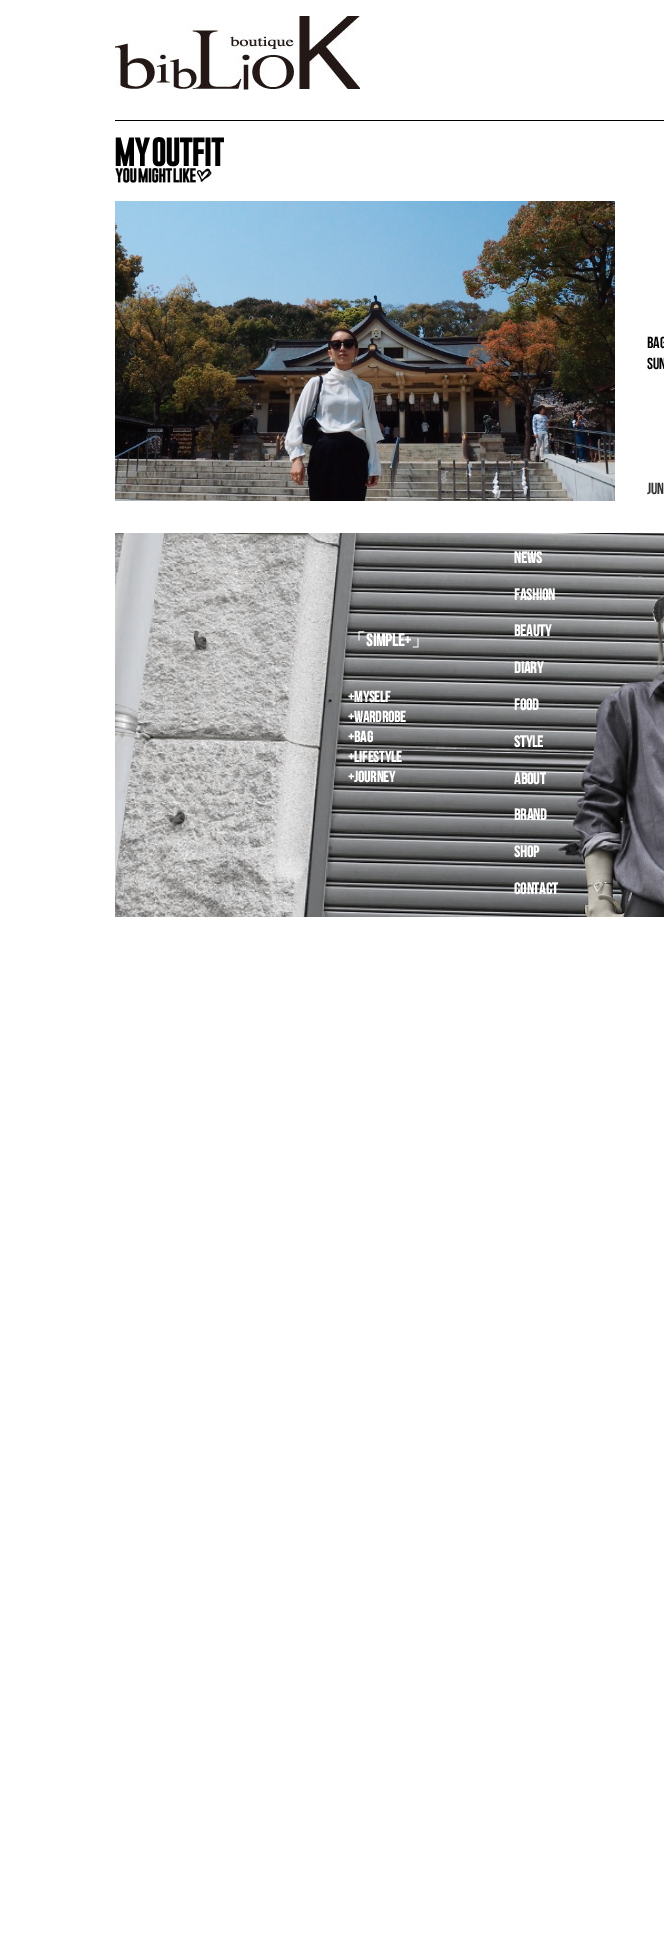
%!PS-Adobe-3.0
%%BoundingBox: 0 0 664 1948
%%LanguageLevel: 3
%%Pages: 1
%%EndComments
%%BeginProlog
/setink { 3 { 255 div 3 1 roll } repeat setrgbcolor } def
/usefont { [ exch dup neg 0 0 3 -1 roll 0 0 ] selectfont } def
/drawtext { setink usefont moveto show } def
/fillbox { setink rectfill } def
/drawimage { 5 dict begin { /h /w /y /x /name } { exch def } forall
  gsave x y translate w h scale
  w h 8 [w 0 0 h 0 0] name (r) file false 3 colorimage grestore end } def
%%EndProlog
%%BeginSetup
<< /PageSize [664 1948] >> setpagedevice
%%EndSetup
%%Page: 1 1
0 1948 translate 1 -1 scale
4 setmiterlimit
0 0 664 1948 255 255 255 fillbox
(assets/img1.rgb) 115 16 245 74 drawimage
115 120 549 1 0 0 0 fillbox
(assets/img2.rgb) 115 137 109 46 drawimage
(assets/img3.rgb) 115 201 500 300 drawimage
(bag) 647 348 /BebasNeue-Regular 16 0 0 0 drawtext
(sun) 647 369 /BebasNeue-Regular 16 0 0 0 drawtext
(Jun) 647 494 /BebasNeue-Regular 16 51 51 51 drawtext
(assets/img4.rgb) 115 533 549 384 drawimage
(「) 348 646 /WenQuanYiZenHei-Bold 17.5 255 255 255 drawtext
(SIMPLE+) 366 646 /BebasNeue-Bold 17.5 255 255 255 drawtext
(」) 411 646 /WenQuanYiZenHei-Bold 17.5 255 255 255 drawtext
(+Myself) 348 702 /BebasNeue-Bold 15.5 255 255 255 drawtext
(+Wardrobe) 348 722 /BebasNeue-Bold 15.5 255 255 255 drawtext
(+Bag) 348 742 /BebasNeue-Bold 15.5 255 255 255 drawtext
(+Lifestyle) 348 762 /BebasNeue-Bold 15.5 255 255 255 drawtext
(+Journey) 348 782 /BebasNeue-Bold 15.5 255 255 255 drawtext
(News) 514 563 /BebasNeue-Bold 16 255 255 255 drawtext
(Fashion) 514 600 /BebasNeue-Bold 16 255 255 255 drawtext
(Beauty) 514 636 /BebasNeue-Bold 16 255 255 255 drawtext
(Diary) 514 673 /BebasNeue-Bold 16 255 255 255 drawtext
(Food) 514 710 /BebasNeue-Bold 16 255 255 255 drawtext
(Style) 514 747 /BebasNeue-Bold 16 255 255 255 drawtext
(About) 514 784 /BebasNeue-Bold 16 255 255 255 drawtext
(Brand) 514 820 /BebasNeue-Bold 16 255 255 255 drawtext
(Shop) 514 857 /BebasNeue-Bold 16 255 255 255 drawtext
(Contact) 514 894 /BebasNeue-Bold 16 255 255 255 drawtext
showpage
%%EOF
